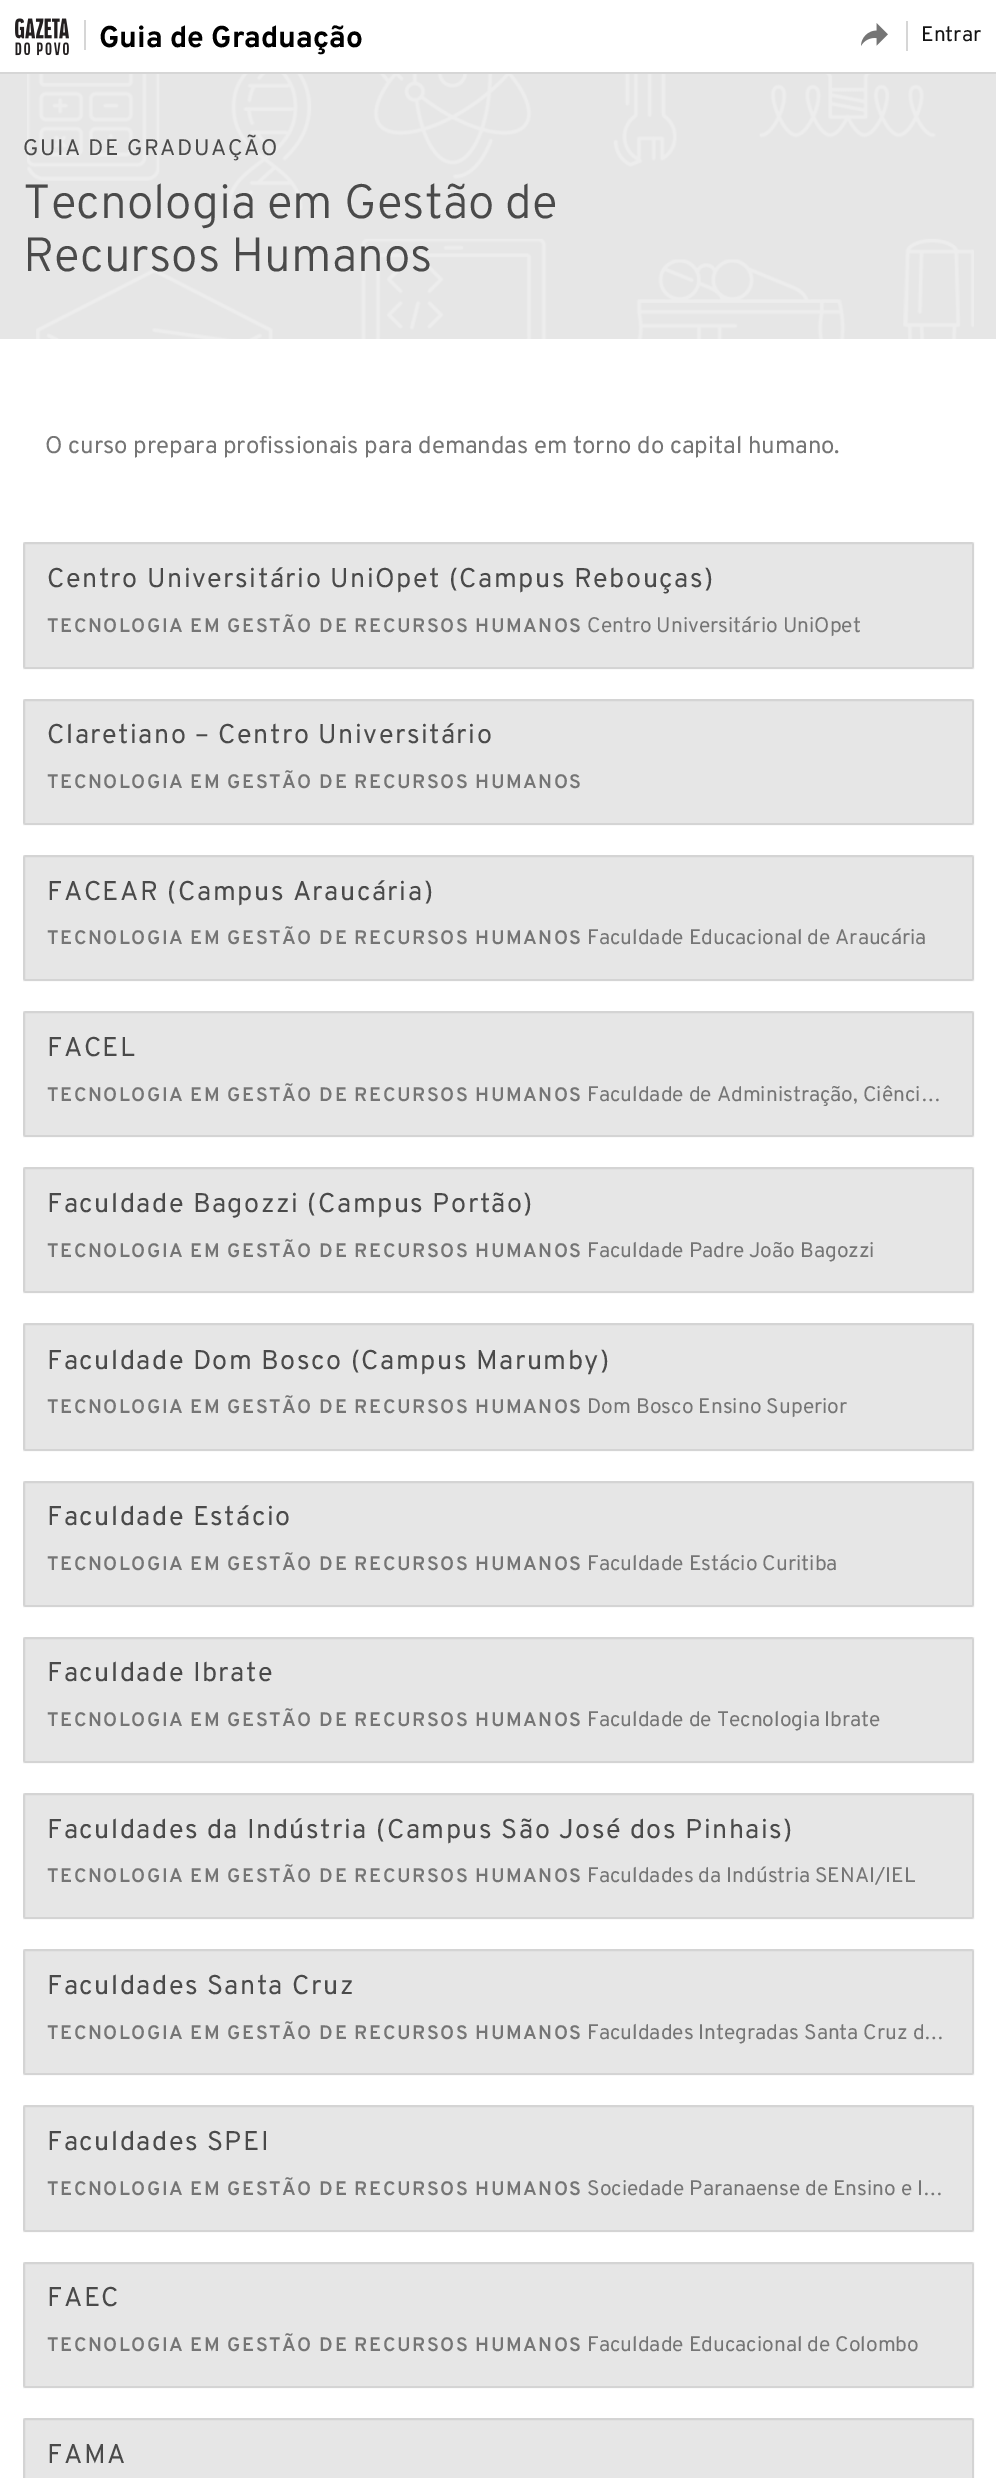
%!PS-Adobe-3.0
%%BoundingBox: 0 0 996 2478
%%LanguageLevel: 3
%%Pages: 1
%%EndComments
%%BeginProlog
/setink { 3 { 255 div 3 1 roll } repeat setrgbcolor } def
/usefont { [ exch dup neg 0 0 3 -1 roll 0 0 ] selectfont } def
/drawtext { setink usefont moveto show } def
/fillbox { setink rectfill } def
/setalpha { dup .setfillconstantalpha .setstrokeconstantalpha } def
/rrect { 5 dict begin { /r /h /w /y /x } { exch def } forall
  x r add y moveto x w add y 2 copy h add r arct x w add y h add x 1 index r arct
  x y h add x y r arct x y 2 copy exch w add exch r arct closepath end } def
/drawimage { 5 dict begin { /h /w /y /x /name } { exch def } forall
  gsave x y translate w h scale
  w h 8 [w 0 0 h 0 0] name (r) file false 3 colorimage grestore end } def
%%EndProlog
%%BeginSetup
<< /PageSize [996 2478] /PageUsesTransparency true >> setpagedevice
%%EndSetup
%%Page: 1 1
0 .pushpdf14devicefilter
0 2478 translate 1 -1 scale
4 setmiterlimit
0 0 996 2478 255 255 255 fillbox
0 72 996 2 214 214 214 fillbox
(assets/img1.rgb) 15 18 54 38 drawimage
84 20 2 30 214 214 214 fillbox
(Guia de Graduação) 99 47 /Overpass-Bold 30 0 0 0 drawtext
(assets/img2.rgb) 861 23 27 23 drawimage
906 21 2 30 214 214 214 fillbox
(Entrar) 921 41 /Overpass-Regular 21 20 20 20 drawtext
0 74 996 265 230 230 230 fillbox
(assets/img3.rgb) 27 74 947 265 drawimage
/Overpass-Regular 22.5 usefont
74 74 74 setink
23 155 moveto 1.5 0 (GUIA DE GRADUAÇÃO) ashow
(Tecnologia em Gestão de) 23 218 /Overpass-Light 48 74 74 74 drawtext
(Recursos Humanos) 23 271 /Overpass-Light 48 74 74 74 drawtext
(O curso prepara profissionais para demandas em torno do capital humano.) 45 453 /Overpass-Regular 24 117 117 117 drawtext
230 230 230 setink
23 542 951 127 3 rrect fill
0.08 setalpha
0 0 0 setink
2 setlinewidth
24 543 949 125 rectstroke
/Overpass-Regular 27 usefont
1 setalpha
74 74 74 setink
47 587 moveto 1.5 0 (Centro Universitário UniOpet \(Campus Rebouças\)) ashow
/Overpass-SemiBold 19.5 usefont
117 117 117 setink
47 632 moveto 1.5 0 (TECNOLOGIA EM GESTÃO DE RECURSOS HUMANOS) ashow
(Centro Universitário UniOpet) 587 632 /Overpass-Regular 21 117 117 117 drawtext
230 230 230 setink
23 699 951 126 3 rrect fill
0.08 setalpha
0 0 0 setink
24 700 949 124 rectstroke
/Overpass-Regular 27 usefont
1 setalpha
74 74 74 setink
47 743 moveto 1.5 0 (Claretiano – Centro Universitário) ashow
/Overpass-SemiBold 19.5 usefont
117 117 117 setink
47 788 moveto 1.5 0 (TECNOLOGIA EM GESTÃO DE RECURSOS HUMANOS) ashow
230 230 230 setink
23 855 951 126 3 rrect fill
0.08 setalpha
0 0 0 setink
24 856 949 124 rectstroke
/Overpass-Regular 27 usefont
1 setalpha
74 74 74 setink
47 900 moveto 1.5 0 (FACEAR \(Campus Araucária\)) ashow
/Overpass-SemiBold 19.5 usefont
117 117 117 setink
47 944 moveto 1.5 0 (TECNOLOGIA EM GESTÃO DE RECURSOS HUMANOS) ashow
(Faculdade Educacional de Araucária) 587 944 /Overpass-Regular 21 117 117 117 drawtext
230 230 230 setink
23 1011 951 126 3 rrect fill
0.08 setalpha
0 0 0 setink
24 1012 949 124 rectstroke
/Overpass-Regular 27 usefont
1 setalpha
74 74 74 setink
47 1056 moveto 1.5 0 (FACEL) ashow
/Overpass-SemiBold 19.5 usefont
117 117 117 setink
47 1101 moveto 1.5 0 (TECNOLOGIA EM GESTÃO DE RECURSOS HUMANOS) ashow
(Faculdade de Administração, Ciênci…) 587 1101 /Overpass-Regular 21 117 117 117 drawtext
230 230 230 setink
23 1167 951 126 3 rrect fill
0.08 setalpha
0 0 0 setink
24 1168 949 124 rectstroke
/Overpass-Regular 27 usefont
1 setalpha
74 74 74 setink
47 1212 moveto 1.5 0 (Faculdade Bagozzi \(Campus Portão\)) ashow
/Overpass-SemiBold 19.5 usefont
117 117 117 setink
47 1257 moveto 1.5 0 (TECNOLOGIA EM GESTÃO DE RECURSOS HUMANOS) ashow
(Faculdade Padre João Bagozzi) 587 1257 /Overpass-Regular 21 117 117 117 drawtext
230 230 230 setink
23 1323 951 128 3 rrect fill
0.08 setalpha
0 0 0 setink
24 1324 949 126 rectstroke
/Overpass-Regular 27 usefont
1 setalpha
74 74 74 setink
47 1369 moveto 1.5 0 (Faculdade Dom Bosco \(Campus Marumby\)) ashow
/Overpass-SemiBold 19.5 usefont
117 117 117 setink
47 1413 moveto 1.5 0 (TECNOLOGIA EM GESTÃO DE RECURSOS HUMANOS) ashow
(Dom Bosco Ensino Superior) 587 1413 /Overpass-Regular 21 117 117 117 drawtext
230 230 230 setink
23 1481 951 126 3 rrect fill
0.08 setalpha
0 0 0 setink
24 1482 949 124 rectstroke
/Overpass-Regular 27 usefont
1 setalpha
74 74 74 setink
47 1525 moveto 1.5 0 (Faculdade Estácio) ashow
/Overpass-SemiBold 19.5 usefont
117 117 117 setink
47 1570 moveto 1.5 0 (TECNOLOGIA EM GESTÃO DE RECURSOS HUMANOS) ashow
(Faculdade Estácio Curitiba) 587 1570 /Overpass-Regular 21 117 117 117 drawtext
230 230 230 setink
23 1637 951 126 3 rrect fill
0.08 setalpha
0 0 0 setink
24 1638 949 124 rectstroke
/Overpass-Regular 27 usefont
1 setalpha
74 74 74 setink
47 1681 moveto 1.5 0 (Faculdade Ibrate) ashow
/Overpass-SemiBold 19.5 usefont
117 117 117 setink
47 1726 moveto 1.5 0 (TECNOLOGIA EM GESTÃO DE RECURSOS HUMANOS) ashow
(Faculdade de Tecnologia Ibrate) 587 1726 /Overpass-Regular 21 117 117 117 drawtext
230 230 230 setink
23 1793 951 126 3 rrect fill
0.08 setalpha
0 0 0 setink
24 1794 949 124 rectstroke
/Overpass-Regular 27 usefont
1 setalpha
74 74 74 setink
47 1838 moveto 1.5 0 (Faculdades da Indústria \(Campus São José dos Pinhais\)) ashow
/Overpass-SemiBold 19.5 usefont
117 117 117 setink
47 1882 moveto 1.5 0 (TECNOLOGIA EM GESTÃO DE RECURSOS HUMANOS) ashow
(Faculdades da Indústria SENAI/IEL) 587 1882 /Overpass-Regular 21 117 117 117 drawtext
230 230 230 setink
23 1949 951 126 3 rrect fill
0.08 setalpha
0 0 0 setink
24 1950 949 124 rectstroke
/Overpass-Regular 27 usefont
1 setalpha
74 74 74 setink
47 1994 moveto 1.5 0 (Faculdades Santa Cruz) ashow
/Overpass-SemiBold 19.5 usefont
117 117 117 setink
47 2039 moveto 1.5 0 (TECNOLOGIA EM GESTÃO DE RECURSOS HUMANOS) ashow
(Faculdades Integradas Santa Cruz d…) 587 2039 /Overpass-Regular 21 117 117 117 drawtext
230 230 230 setink
23 2105 951 127 3 rrect fill
0.08 setalpha
0 0 0 setink
24 2106 949 125 rectstroke
/Overpass-Regular 27 usefont
1 setalpha
74 74 74 setink
47 2150 moveto 1.5 0 (Faculdades SPEI) ashow
/Overpass-SemiBold 19.5 usefont
117 117 117 setink
47 2195 moveto 1.5 0 (TECNOLOGIA EM GESTÃO DE RECURSOS HUMANOS) ashow
(Sociedade Paranaense de Ensino e I…) 587 2195 /Overpass-Regular 21 117 117 117 drawtext
230 230 230 setink
23 2262 951 126 3 rrect fill
0.08 setalpha
0 0 0 setink
24 2263 949 124 rectstroke
/Overpass-Regular 27 usefont
1 setalpha
74 74 74 setink
47 2306 moveto 1.5 0 (FAEC) ashow
/Overpass-SemiBold 19.5 usefont
117 117 117 setink
47 2351 moveto 1.5 0 (TECNOLOGIA EM GESTÃO DE RECURSOS HUMANOS) ashow
(Faculdade Educacional de Colombo) 587 2351 /Overpass-Regular 21 117 117 117 drawtext
230 230 230 setink
23 2418 951 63 3 rrect fill
0.08 setalpha
0 0 0 setink
24 2419 949 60 rectstroke
/Overpass-Regular 27 usefont
1 setalpha
74 74 74 setink
47 2463 moveto 1.5 0 (FAMA) ashow
.poppdf14devicefilter showpage
%%EOF
